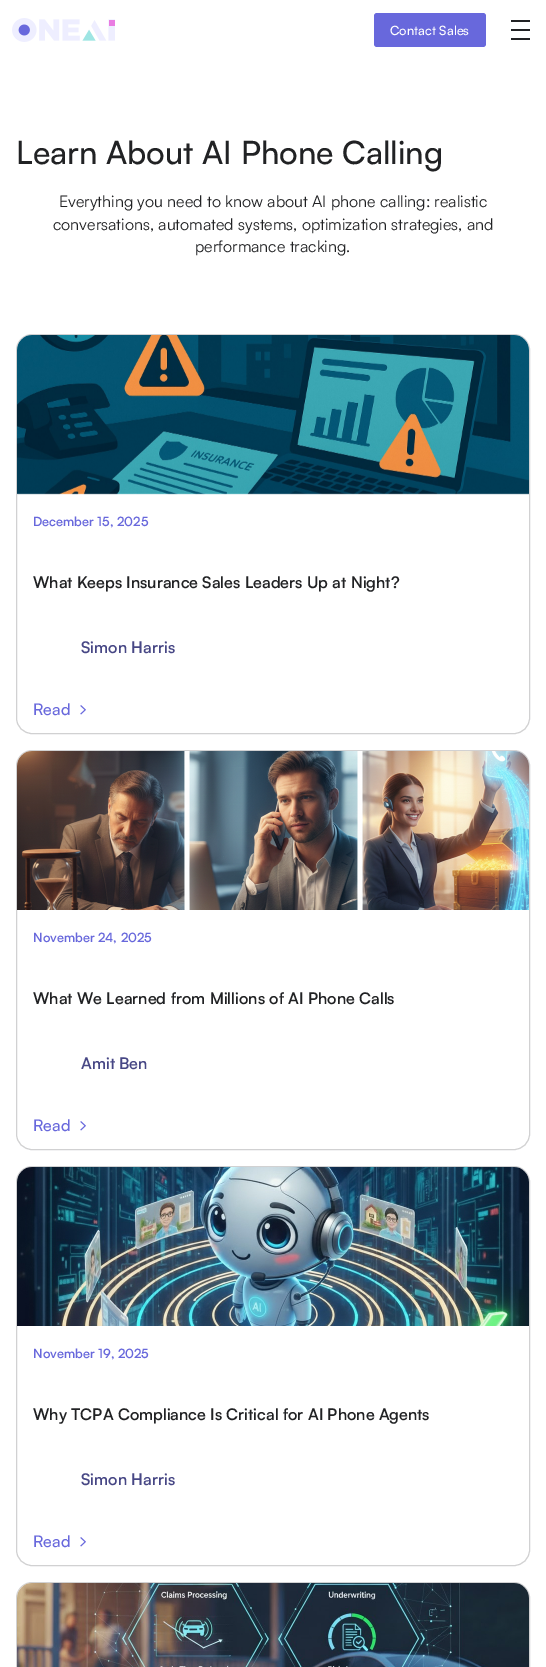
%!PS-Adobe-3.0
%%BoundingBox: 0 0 546 1667
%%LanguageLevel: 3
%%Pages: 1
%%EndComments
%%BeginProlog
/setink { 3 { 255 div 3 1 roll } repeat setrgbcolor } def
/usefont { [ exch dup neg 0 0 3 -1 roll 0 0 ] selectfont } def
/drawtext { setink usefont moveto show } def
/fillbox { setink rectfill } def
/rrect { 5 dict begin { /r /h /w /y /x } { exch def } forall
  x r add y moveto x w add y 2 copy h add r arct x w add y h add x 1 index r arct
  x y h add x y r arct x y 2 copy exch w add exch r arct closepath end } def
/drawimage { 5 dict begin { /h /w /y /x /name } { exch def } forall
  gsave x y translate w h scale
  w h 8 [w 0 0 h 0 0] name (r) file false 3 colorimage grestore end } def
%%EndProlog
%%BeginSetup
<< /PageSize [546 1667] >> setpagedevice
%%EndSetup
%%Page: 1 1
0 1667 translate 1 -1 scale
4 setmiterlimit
0 0 546 1667 255 255 255 fillbox
(assets/img1.rgb) 12 18 103 24 drawimage
104 104 220 setink
374 13 112 34 3 rrect fill
(Contact Sales) 390 35 /Satoshi-Medium 12.75 255 255 255 drawtext
511 20 19 2 33 34 36 fillbox
511 29 19 2 33 34 36 fillbox
511 38 19 2 33 34 36 fillbox
(Learn About AI Phone Calling) 16 164 /Satoshi-Medium 32 33 34 36 drawtext
(Everything you need to know about AI phone calling: realistic) 59 207 /Satoshi-Regular 16 33 34 36 drawtext
(conversations, automated systems, optimization strategies, and) 53 230 /Satoshi-Regular 16 33 34 36 drawtext
(performance tracking.) 195 252 /Satoshi-Regular 16 33 34 36 drawtext
209 209 210 setink
16.5 334.5 513 399 15.5 rrect stroke
(assets/img2.rgb) 17 335 512 160 drawimage
(December 15, 2025) 33 526 /Satoshi-SemiBold 12.75 104 104 220 drawtext
(What Keeps Insurance Sales Leaders Up at Night?) 33 588 /Satoshi-SemiBold 16 33 34 36 drawtext
(Simon Harris) 81 653 /Satoshi-SemiBold 16 71 71 133 drawtext
(Read) 33 715 /Satoshi-Medium 16 104 104 220 drawtext
(assets/img3.rgb) 80 705 6 10 drawimage
209 209 210 setink
16.5 750.5 513 399 15.5 rrect stroke
(assets/img4.rgb) 17 751 512 159 drawimage
(November 24, 2025) 33 942 /Satoshi-SemiBold 12.75 104 104 220 drawtext
(What We Learned from Millions of AI Phone Calls) 33 1004 /Satoshi-SemiBold 16 33 34 36 drawtext
(Amit Ben) 81 1069 /Satoshi-SemiBold 16 71 71 133 drawtext
(Read) 33 1131 /Satoshi-Medium 16 104 104 220 drawtext
(assets/img3.rgb) 80 1121 6 10 drawimage
209 209 210 setink
16.5 1166.5 513 399 15.5 rrect stroke
(assets/img5.rgb) 17 1167 512 159 drawimage
(November 19, 2025) 33 1358 /Satoshi-SemiBold 12.75 104 104 220 drawtext
(Why TCPA Compliance Is Critical for AI Phone Agents) 33 1420 /Satoshi-SemiBold 16 33 34 36 drawtext
(Simon Harris) 81 1485 /Satoshi-SemiBold 16 71 71 133 drawtext
(Read) 33 1547 /Satoshi-Medium 16 104 104 220 drawtext
(assets/img3.rgb) 80 1537 6 10 drawimage
209 209 210 setink
16.5 1582.5 513 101 15.5 rrect stroke
(assets/img6.rgb) 17 1583 512 84 drawimage
showpage
%%EOF
